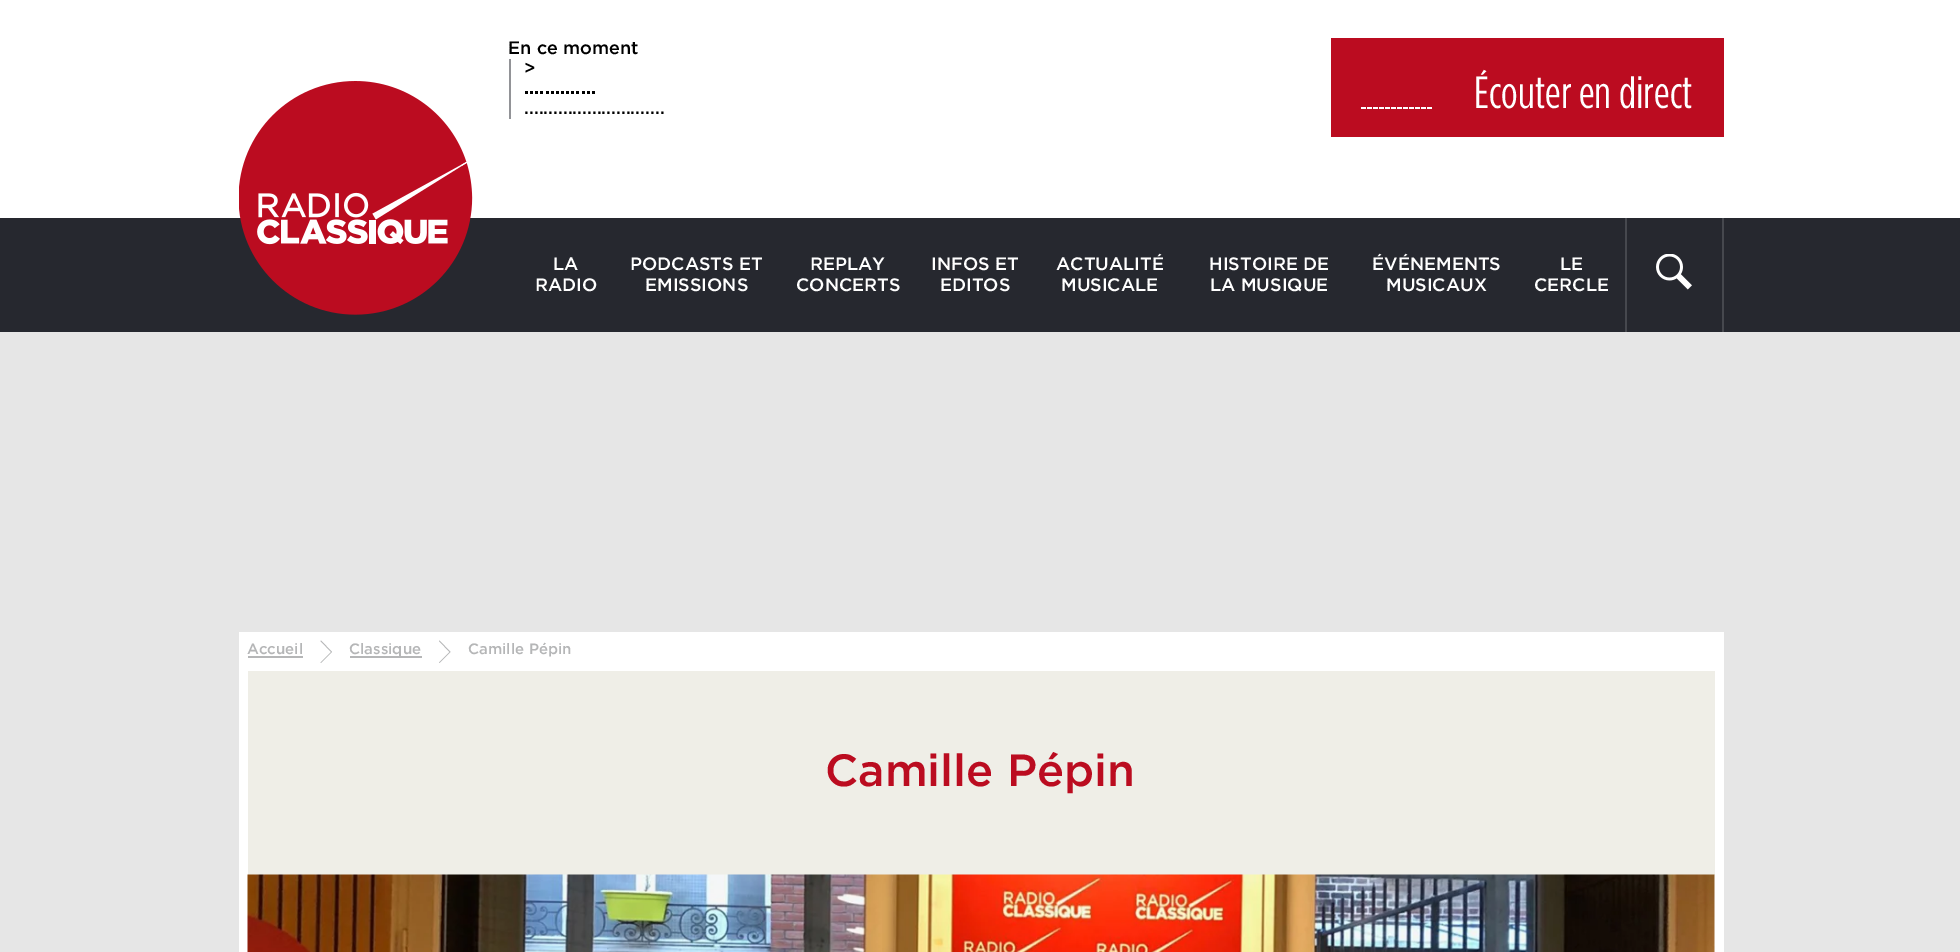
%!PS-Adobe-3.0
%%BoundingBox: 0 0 1960 952
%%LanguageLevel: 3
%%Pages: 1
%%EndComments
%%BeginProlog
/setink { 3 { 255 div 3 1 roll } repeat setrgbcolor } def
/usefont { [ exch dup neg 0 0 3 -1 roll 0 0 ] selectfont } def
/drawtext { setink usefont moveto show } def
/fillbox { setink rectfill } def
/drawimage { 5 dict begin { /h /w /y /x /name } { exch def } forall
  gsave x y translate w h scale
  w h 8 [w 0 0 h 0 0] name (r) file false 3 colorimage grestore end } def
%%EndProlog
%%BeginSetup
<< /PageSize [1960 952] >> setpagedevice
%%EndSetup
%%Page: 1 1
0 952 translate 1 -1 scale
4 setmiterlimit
0 0 1960 952 230 230 230 fillbox
0 0 1960 218 255 255 255 fillbox
(En ce moment) 508 54 /Gotham-Medium 18 0 0 0 drawtext
509 59 2 60 146 147 151 fillbox
(>) 524 74 /Gotham-Medium 18 0 0 0 drawtext
(..............) 524 94 /Gotham-Bold 18 0 0 0 drawtext
(.............................) 524 114 /Gotham-Medium 18 0 0 0 drawtext
1331 38 393 99 187 12 32 fillbox
1361 107 5 2 255 255 255 fillbox
1367 107 5 2 255 255 255 fillbox
1373 107 5 2 255 255 255 fillbox
1379 107 5 2 255 255 255 fillbox
1385 107 5 2 255 255 255 fillbox
1391 107 5 2 255 255 255 fillbox
1397 107 5 2 255 255 255 fillbox
1403 107 5 2 255 255 255 fillbox
1409 107 5 2 255 255 255 fillbox
1415 107 5 2 255 255 255 fillbox
1421 107 5 2 255 255 255 fillbox
1427 107 5 2 255 255 255 fillbox
(Écouter en direct) 1474 108 /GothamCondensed-Regular 45 255 255 255 drawtext
0 218 1960 114 38 40 47 fillbox
(assets/img1.rgb) 239 81 234 234 drawimage
(LA) 553 270 /Gotham-Medium 18 255 255 255 drawtext
(RADIO) 535 291 /Gotham-Medium 18 255 255 255 drawtext
(PODCASTS ET) 630 270 /Gotham-Medium 18 255 255 255 drawtext
(EMISSIONS) 645 291 /Gotham-Medium 18 255 255 255 drawtext
(REPLAY) 810 270 /Gotham-Medium 18 255 255 255 drawtext
(CONCERTS) 796 291 /Gotham-Medium 18 255 255 255 drawtext
(INFOS ET) 931 270 /Gotham-Medium 18 255 255 255 drawtext
(EDITOS) 940 291 /Gotham-Medium 18 255 255 255 drawtext
(ACTUALITÉ) 1056 270 /Gotham-Medium 18 255 255 255 drawtext
(MUSICALE) 1061 291 /Gotham-Medium 18 255 255 255 drawtext
(HISTOIRE DE) 1209 270 /Gotham-Medium 18 255 255 255 drawtext
(LA MUSIQUE) 1210 291 /Gotham-Medium 18 255 255 255 drawtext
(ÉVÉNEMENTS) 1372 270 /Gotham-Medium 18 255 255 255 drawtext
(MUSICAUX) 1386 291 /Gotham-Medium 18 255 255 255 drawtext
(LE) 1560 270 /Gotham-Medium 18 255 255 255 drawtext
(CERCLE) 1534 291 /Gotham-Medium 18 255 255 255 drawtext
1722 218 2 114 70 72 78 fillbox
1625 218 2 114 70 72 78 fillbox
(assets/img2.rgb) 1656 254 36 36 drawimage
239 632 1485 320 255 255 255 fillbox
(Accueil) 247 654 /Gotham-Medium 15 181 182 183 drawtext
248 656 55 2 181 182 183 fillbox
321 663 moveto 320.5 662.5 lineto 331 652 lineto 320.5 641 lineto 321 640.5 lineto 332 652 lineto closepath fill
350 656 72 2 181 182 183 fillbox
(Classique) 349 654 /Gotham-Medium 15 181 182 183 drawtext
439.5 663 moveto 439 662.5 lineto 449.5 652 lineto 439 641 lineto 439.5 640.5 lineto 450.5 652 lineto closepath fill
(Camille Pépin) 468 654 /Gotham-Medium 15 181 182 183 drawtext
248 671 1467 204 239 238 231 fillbox
(Camille Pépin) 825 786 /Gotham-Medium 45 187 12 32 drawtext
(assets/img3.rgb) 247 874 1468 78 drawimage
showpage
%%EOF
